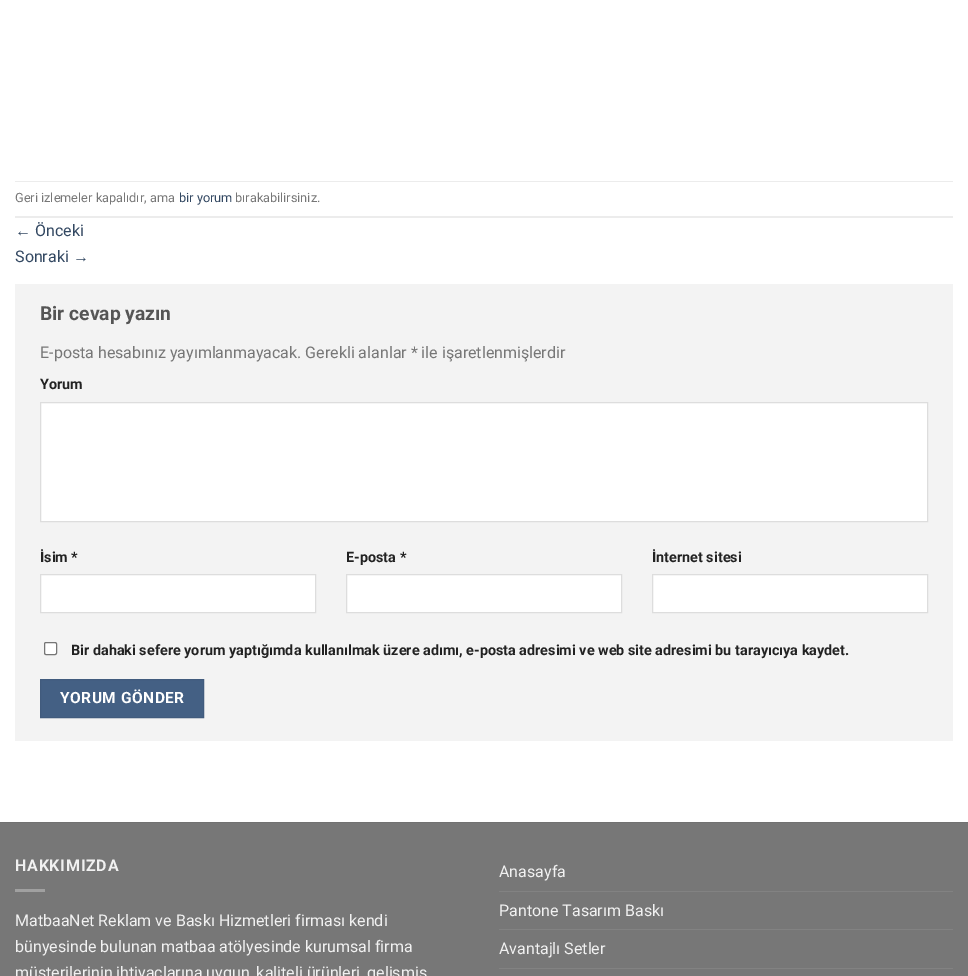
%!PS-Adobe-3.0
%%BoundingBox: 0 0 968 976
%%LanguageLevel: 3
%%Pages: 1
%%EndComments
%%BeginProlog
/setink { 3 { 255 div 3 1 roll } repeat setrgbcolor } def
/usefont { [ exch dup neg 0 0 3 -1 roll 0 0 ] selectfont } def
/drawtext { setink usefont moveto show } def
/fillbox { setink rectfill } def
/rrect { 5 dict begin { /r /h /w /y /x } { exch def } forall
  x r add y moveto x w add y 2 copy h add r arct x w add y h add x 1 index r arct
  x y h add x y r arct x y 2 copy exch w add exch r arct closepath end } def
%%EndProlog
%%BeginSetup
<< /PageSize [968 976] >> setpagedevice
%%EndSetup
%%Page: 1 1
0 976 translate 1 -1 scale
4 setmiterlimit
0 0 968 976 255 255 255 fillbox
15 181 938 1 236 236 236 fillbox
15 216 938 2 236 236 236 fillbox
(Geri izlemeler kapalıdır, ama) 15 202 /Roboto-Regular 12.75 119 119 119 drawtext
(bir yorum) 179 202 /Roboto-Regular 12.75 51 72 98 drawtext
(bırakabilirsiniz.) 235 202 /Roboto-Regular 12.75 119 119 119 drawtext
(←) 15 236 /LiberationSans-Regular 16 51 72 98 drawtext
(Önceki) 35 236 /Roboto-Regular 16 51 72 98 drawtext
(Sonraki) 15 262 /Roboto-Regular 16 51 72 98 drawtext
(→) 73 262 /LiberationSans-Regular 16 51 72 98 drawtext
15 284 938 457 243 243 243 fillbox
(Bir cevap yazın) 40 320 /Roboto-Bold 19.25 85 85 85 drawtext
(E-posta hesabınız yayımlanmayacak. Gerekli alanlar * ile işaretlenmişlerdir) 40 358 /Roboto-Regular 16 119 119 119 drawtext
(Yorum) 40 389 /Roboto-Bold 14.4 34 34 34 drawtext
255 255 255 setink
40.5 402.5 moveto 927.5 402.5 lineto 927.5 521.5 lineto 40.5 521.5 lineto closepath gsave fill grestore
221 221 221 setink
stroke
(İsim *) 40 562 /Roboto-Bold 14.4 34 34 34 drawtext
255 255 255 setink
40.5 574.5 moveto 315.5 574.5 lineto 315.5 612.5 lineto 40.5 612.5 lineto closepath gsave fill grestore
221 221 221 setink
stroke
(E-posta *) 346 562 /Roboto-Bold 14.4 34 34 34 drawtext
255 255 255 setink
346.5 574.5 moveto 621.5 574.5 lineto 621.5 612.5 lineto 346.5 612.5 lineto closepath gsave fill grestore
221 221 221 setink
stroke
(İnternet sitesi) 652 562 /Roboto-Bold 14.4 34 34 34 drawtext
255 255 255 setink
652.5 574.5 moveto 927.5 574.5 lineto 927.5 612.5 lineto 652.5 612.5 lineto closepath gsave fill grestore
221 221 221 setink
stroke
255 255 255 setink
44.5 642.5 12 12 1.5 rrect gsave fill grestore
118 118 118 setink
stroke
(Bir dahaki sefere yorum yaptığımda kullanılmak üzere adımı, e-posta adresimi ve web site adresimi bu tarayıcıya kaydet.) 71 655 /Roboto-Bold 14.4 34 34 34 drawtext
68 96 132 setink
40.5 679.5 moveto 203.5 679.5 lineto 203.5 717.5 lineto 40.5 717.5 lineto closepath gsave fill grestore
65 91 125 setink
stroke
/Roboto-Bold 15.5 usefont
255 255 255 setink
60 703 moveto 0.5 0 (YORUM GÖNDER) ashow
0 823 968 153 119 119 119 fillbox
0 822 968 1 113 113 113 fillbox
/Roboto-Bold 16 usefont
241 241 241 setink
15 871 moveto 0.75 0 (HAKKIMIZDA) ashow
15 889 30 3 160 160 160 fillbox
(MatbaaNet Reklam ve Baskı Hizmetleri firması kendi) 15 926 /Roboto-Regular 16 241 241 241 drawtext
(bünyesinde bulunan matbaa atölyesinde kurumsal firma) 15 952 /Roboto-Regular 16 241 241 241 drawtext
(müşterilerinin ihtiyaçlarına uygun, kaliteli ürünleri, gelişmiş) 15 978 /Roboto-Regular 16 241 241 241 drawtext
(Anasayfa) 499 877 /Roboto-Regular 16 241 241 241 drawtext
499 891 454 1 130 130 130 fillbox
(Pantone Tasarım Baskı) 499 916 /Roboto-Regular 16 241 241 241 drawtext
499 929 454 1 130 130 130 fillbox
(Avantajlı Setler) 499 954 /Roboto-Regular 16 241 241 241 drawtext
499 968 454 1 130 130 130 fillbox
showpage
%%EOF
